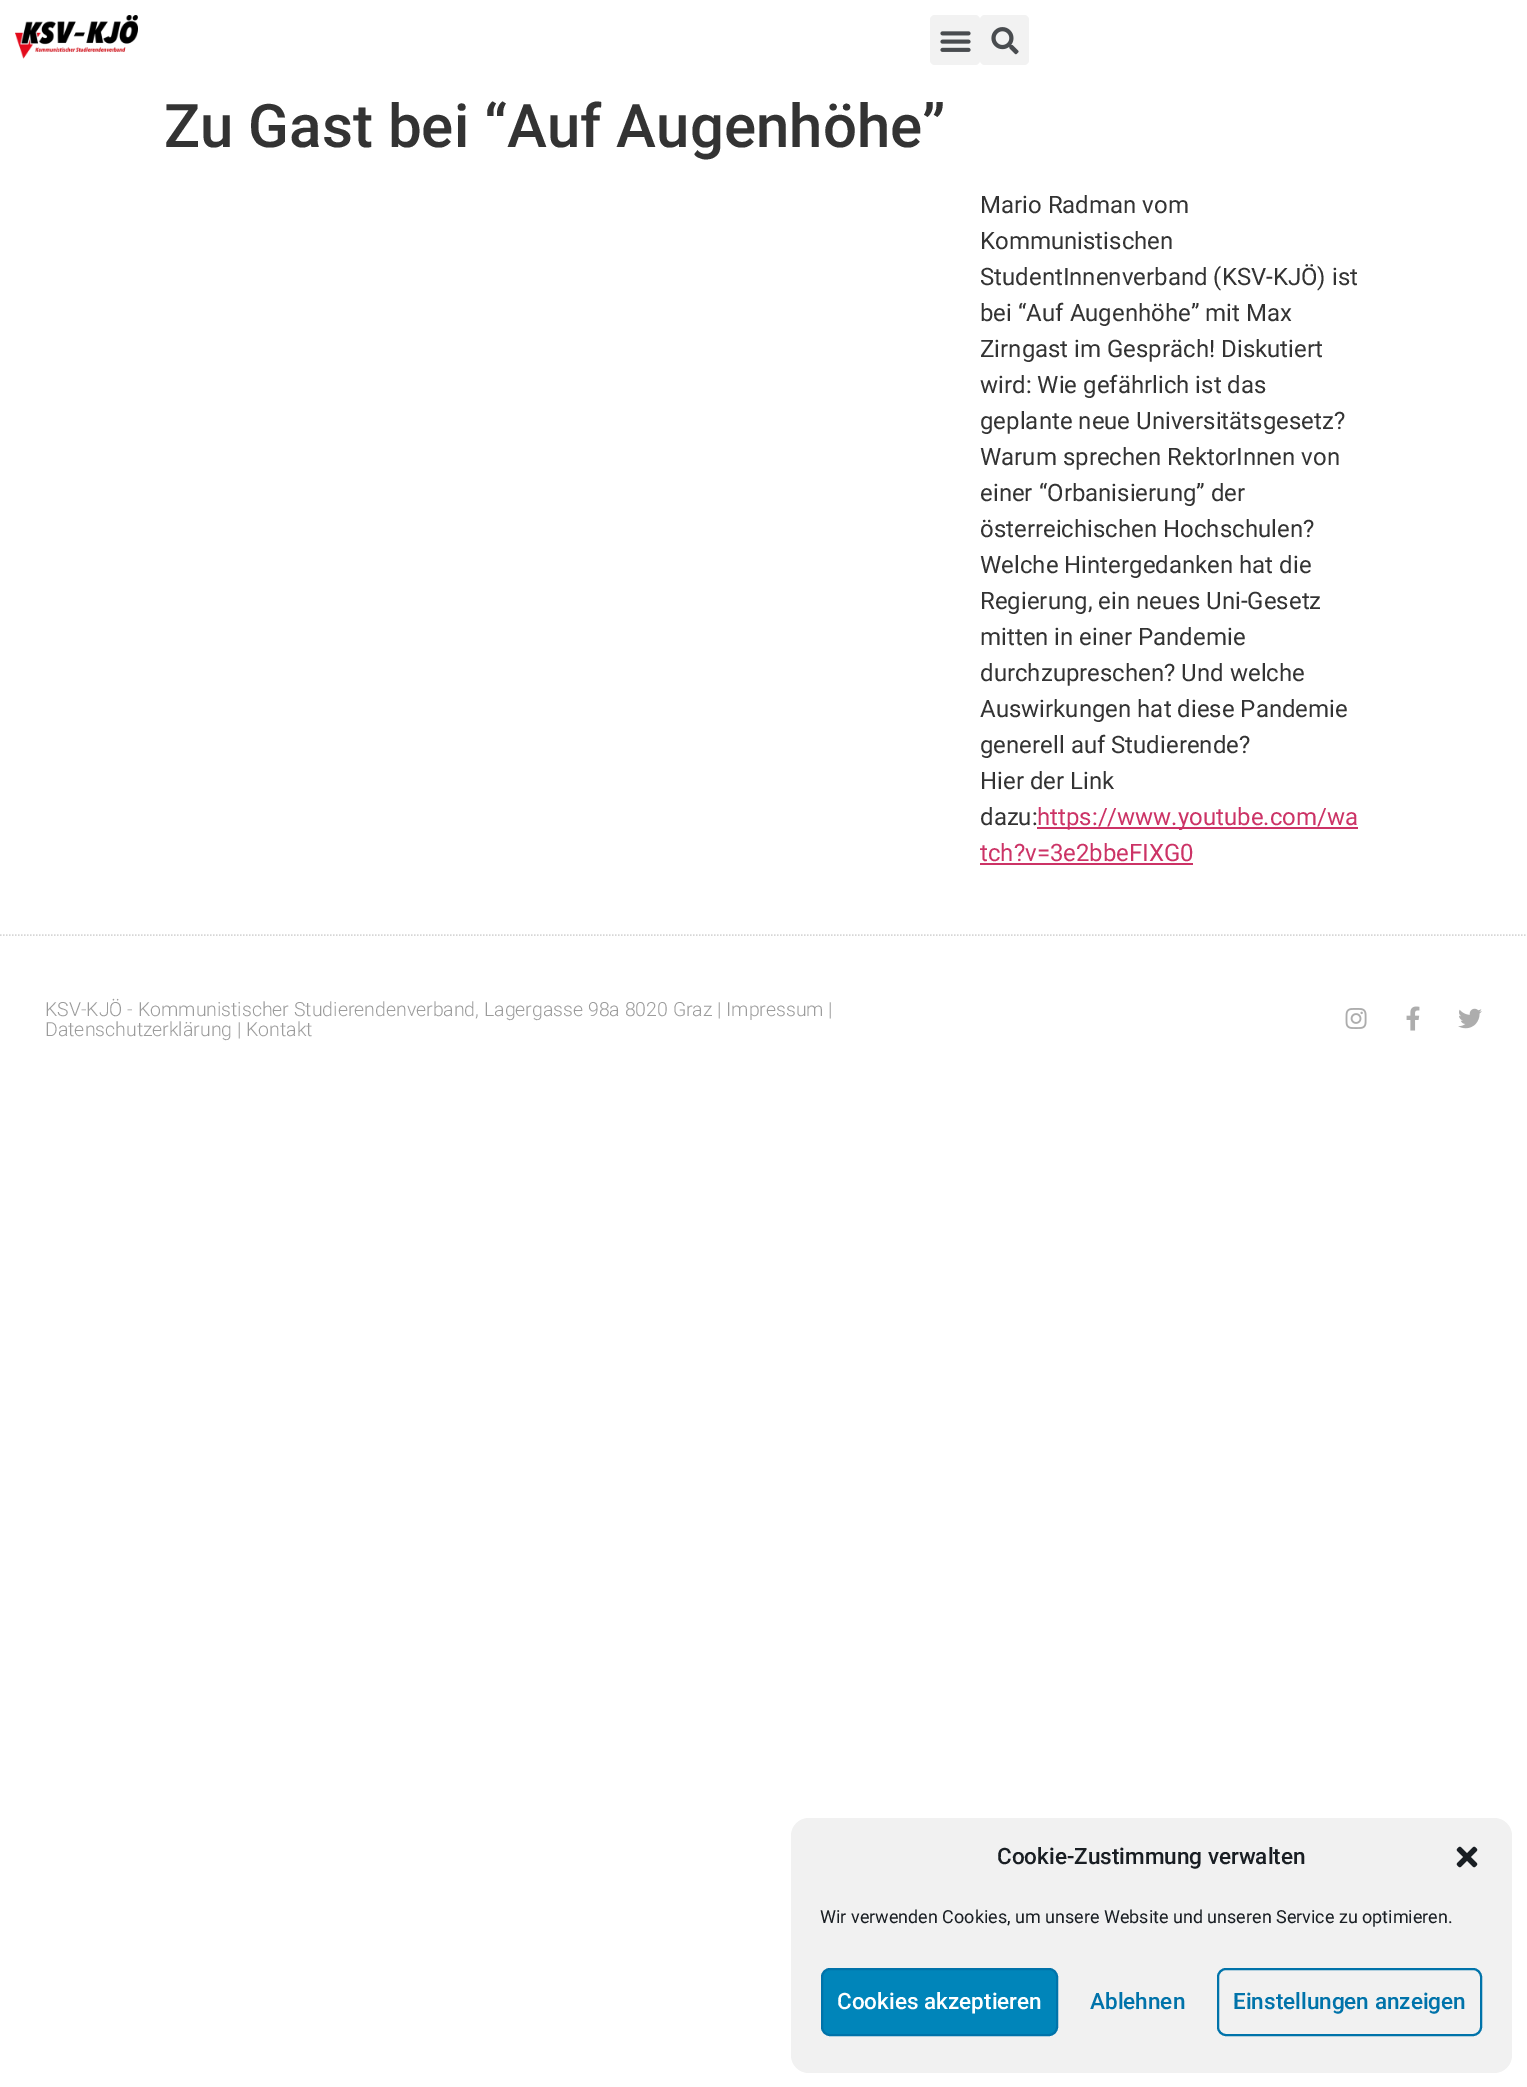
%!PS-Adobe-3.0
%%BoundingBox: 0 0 1527 2087
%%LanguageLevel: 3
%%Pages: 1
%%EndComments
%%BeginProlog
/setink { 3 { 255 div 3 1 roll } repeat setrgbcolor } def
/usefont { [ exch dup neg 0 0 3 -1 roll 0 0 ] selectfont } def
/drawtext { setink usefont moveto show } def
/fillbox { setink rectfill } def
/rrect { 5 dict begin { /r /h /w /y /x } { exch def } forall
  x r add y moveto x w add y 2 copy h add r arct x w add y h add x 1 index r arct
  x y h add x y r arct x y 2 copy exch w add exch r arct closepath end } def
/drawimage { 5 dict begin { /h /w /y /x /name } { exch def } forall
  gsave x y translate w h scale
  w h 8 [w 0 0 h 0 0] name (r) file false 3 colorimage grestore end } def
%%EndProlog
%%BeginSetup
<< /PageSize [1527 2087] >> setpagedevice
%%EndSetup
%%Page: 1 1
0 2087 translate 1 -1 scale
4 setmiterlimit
0 0 1527 2087 255 255 255 fillbox
(assets/img1.rgb) 15 15 123 44 drawimage
242 242 242 setink
930 15 50 50 5 rrect fill
(assets/img2.rgb) 940 31 31 21 drawimage
980 15 49 50 5 rrect fill
(assets/img3.rgb) 991 27 28 28 drawimage
(Zu Gast bei “Auf Augenhöhe”) 164 147 /Roboto-Medium 60 51 51 51 drawtext
(Mario Radman vom) 980 213 /Roboto-Regular 24 51 51 51 drawtext
(Kommunistischen) 980 249 /Roboto-Regular 24 51 51 51 drawtext
(StudentInnenverband \(KSV-KJÖ\) ist) 980 285 /Roboto-Regular 24 51 51 51 drawtext
(bei “Auf Augenhöhe” mit Max) 980 321 /Roboto-Regular 24 51 51 51 drawtext
(Zirngast im Gespräch! Diskutiert) 980 357 /Roboto-Regular 24 51 51 51 drawtext
(wird: Wie gefährlich ist das) 980 393 /Roboto-Regular 24 51 51 51 drawtext
(geplante neue Universitätsgesetz?) 980 429 /Roboto-Regular 24 51 51 51 drawtext
(Warum sprechen RektorInnen von) 980 465 /Roboto-Regular 24 51 51 51 drawtext
(einer “Orbanisierung” der) 980 501 /Roboto-Regular 24 51 51 51 drawtext
(österreichischen Hochschulen?) 980 537 /Roboto-Regular 24 51 51 51 drawtext
(Welche Hintergedanken hat die) 980 573 /Roboto-Regular 24 51 51 51 drawtext
(Regierung, ein neues Uni-Gesetz) 980 609 /Roboto-Regular 24 51 51 51 drawtext
(mitten in einer Pandemie) 980 645 /Roboto-Regular 24 51 51 51 drawtext
(durchzupreschen? Und welche) 980 681 /Roboto-Regular 24 51 51 51 drawtext
(Auswirkungen hat diese Pandemie) 980 717 /Roboto-Regular 24 51 51 51 drawtext
(generell auf Studierende?) 980 753 /Roboto-Regular 24 51 51 51 drawtext
(Hier der Link) 980 789 /Roboto-Regular 24 51 51 51 drawtext
(dazu:) 980 825 /Roboto-Regular 24 51 51 51 drawtext
1037 827 321 2 204 51 102 fillbox
(https://www.youtube.com/wa) 1037 825 /Roboto-Regular 24 204 51 102 drawtext
(tch?v=3e2bbeFIXG0) 980 861 /Roboto-Regular 24 204 51 102 drawtext
980 863 213 2 204 51 102 fillbox
214 214 214 setink
1.5 setlinewidth
[1.5 1.5] 0 setdash
0 935 moveto 1527 935 lineto stroke
(KSV-KJÖ - Kommunistischer Studierendenverband, Lagergasse 98a 8020 Graz | Impressum |) 45 1016 /Roboto-Light 19.5 156 156 156 drawtext
(Datenschutzerklärung | Kontakt) 45 1036 /Roboto-Light 19.5 156 156 156 drawtext
(assets/img4.rgb) 1345 1008 22 21 drawimage
(assets/img5.rgb) 1406 1006 14 25 drawimage
(assets/img6.rgb) 1458 1008 24 21 drawimage
241 241 241 setink
791 1818 721 255 18 rrect fill
(Cookie-Zustimmung verwalten) 997 1864 /Roboto-Medium 22.5 25 30 35 drawtext
(assets/img7.rgb) 1456 1846 22 22 drawimage
(Wir verwenden Cookies, um unsere Website und unseren Service zu optimieren.) 820 1923 /Roboto-Regular 18 25 30 35 drawtext
0 133 186 setink
822 1969 235 66 8 rrect gsave fill grestore
0 115 170 setink
2 setlinewidth
[] 0 setdash
stroke
(Cookies akzeptieren) 837 2009 /Roboto-Medium 22.5 255 255 255 drawtext
(Ablehnen) 1090 2009 /Roboto-Medium 22.5 0 115 170 drawtext
1218 1969 263 66 8 rrect stroke
(Einstellungen anzeigen) 1233 2009 /Roboto-Medium 22.5 0 115 170 drawtext
showpage
%%EOF
